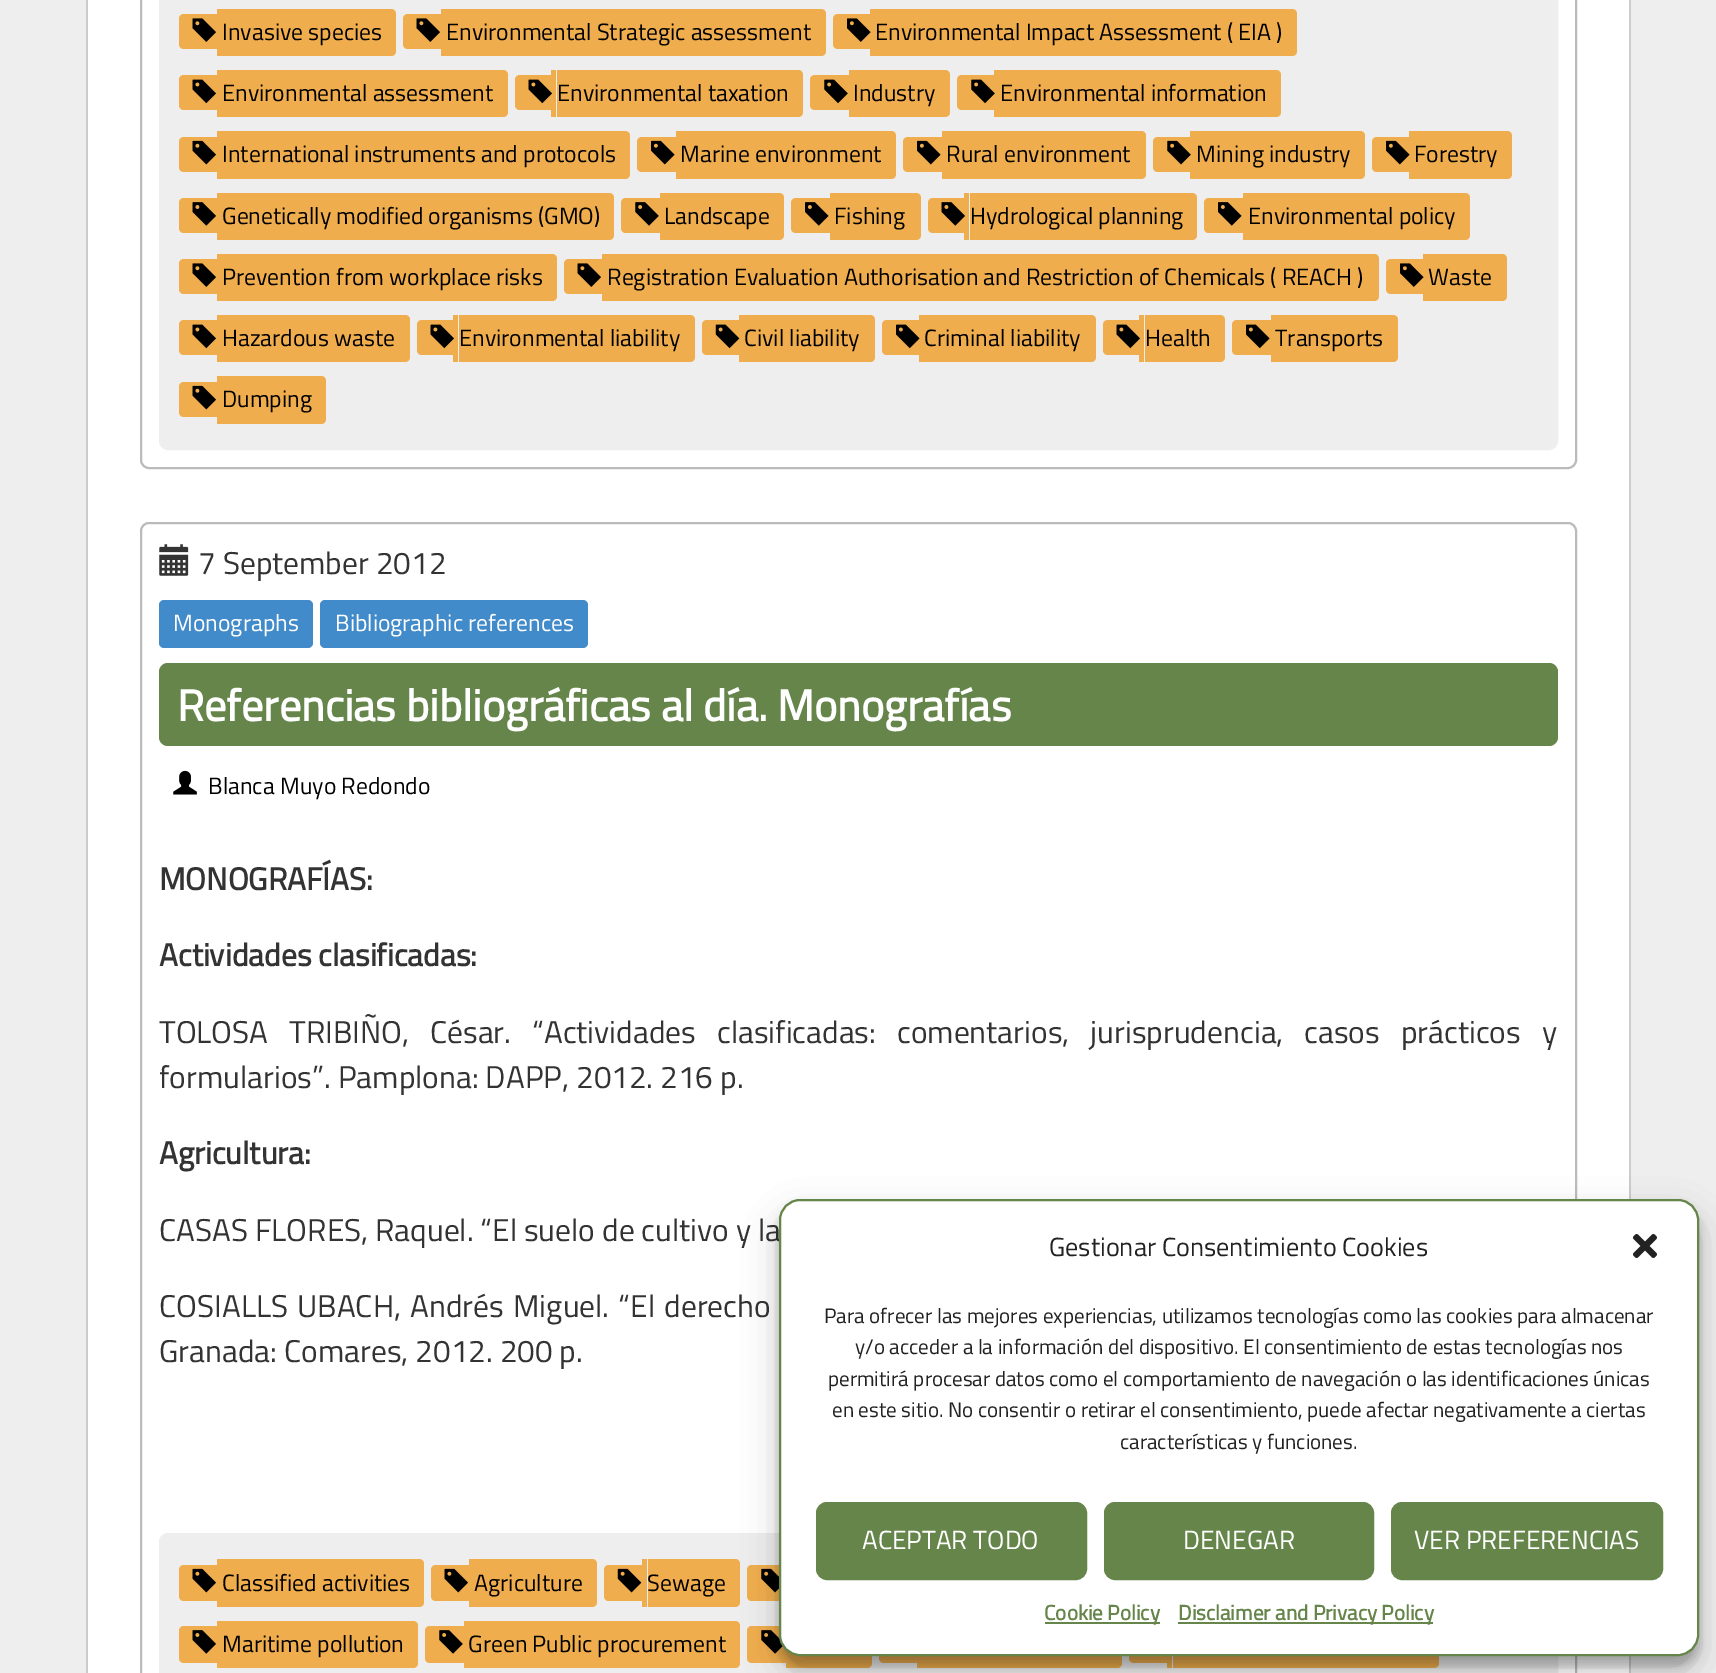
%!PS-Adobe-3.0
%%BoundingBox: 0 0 1716 1673
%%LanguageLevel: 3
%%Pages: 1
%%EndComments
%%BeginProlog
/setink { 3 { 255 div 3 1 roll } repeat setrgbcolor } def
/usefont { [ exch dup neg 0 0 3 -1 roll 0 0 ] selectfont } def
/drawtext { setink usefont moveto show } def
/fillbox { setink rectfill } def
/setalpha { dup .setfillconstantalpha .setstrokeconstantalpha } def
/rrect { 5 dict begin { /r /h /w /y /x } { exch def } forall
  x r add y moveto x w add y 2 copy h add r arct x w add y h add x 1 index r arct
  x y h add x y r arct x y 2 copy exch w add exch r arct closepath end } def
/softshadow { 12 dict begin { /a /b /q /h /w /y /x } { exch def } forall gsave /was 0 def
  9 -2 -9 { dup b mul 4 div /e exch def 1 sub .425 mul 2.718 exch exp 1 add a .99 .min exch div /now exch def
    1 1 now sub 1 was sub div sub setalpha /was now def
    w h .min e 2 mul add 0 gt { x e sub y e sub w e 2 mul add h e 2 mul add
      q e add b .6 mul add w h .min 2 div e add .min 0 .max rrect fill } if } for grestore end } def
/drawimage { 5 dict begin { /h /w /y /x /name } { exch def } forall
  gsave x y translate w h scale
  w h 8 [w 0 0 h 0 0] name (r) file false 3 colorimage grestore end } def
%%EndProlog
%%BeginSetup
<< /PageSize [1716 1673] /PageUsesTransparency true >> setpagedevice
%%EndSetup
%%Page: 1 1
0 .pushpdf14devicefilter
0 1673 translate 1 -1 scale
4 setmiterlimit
0 0 1716 1673 238 238 238 fillbox
88 0 1541 1673 255 255 255 fillbox
1629 0 2 1673 204 204 204 fillbox
86 0 2 1673 204 204 204 fillbox
187 187 187 setink
2 setlinewidth
141 -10 1435 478 8 rrect stroke
238 238 238 setink
161 -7 1395 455 7 rrect fill
160 -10 1397 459 8 rrect stroke
240 173 78 setink
184 14 moveto 217 14 lineto 217 49 lineto 184 49 lineto 181 49 179 47 179 44 curveto 179 19 lineto 179 16 181 14 184 14 curveto closepath fill
217 9 5 47 240 173 78 fillbox
222 9 moveto 391 9 lineto 394 9 396 11 396 14 curveto 396 51 lineto 396 54 394 56 391 56 curveto 222 56 lineto closepath fill
(assets/img1.rgb) 192 18 24 24 drawimage
(Invasive species) 222 40 /TitilliumWeb-Regular 23.6 0 0 0 drawtext
240 173 78 setink
408 14 moveto 441 14 lineto 441 49 lineto 408 49 lineto 405 49 403 47 403 44 curveto 403 19 lineto 403 16 405 14 408 14 curveto closepath fill
441 9 5 47 240 173 78 fillbox
446 9 moveto 821 9 lineto 824 9 826 11 826 14 curveto 826 51 lineto 826 54 824 56 821 56 curveto 446 56 lineto closepath fill
(assets/img1.rgb) 416 18 24 24 drawimage
(Environmental Strategic assessment) 446 40 /TitilliumWeb-Regular 23.6 0 0 0 drawtext
240 173 78 setink
838 14 moveto 870 14 lineto 870 49 lineto 838 49 lineto 835 49 833 47 833 44 curveto 833 19 lineto 833 16 835 14 838 14 curveto closepath fill
870 9 5 47 240 173 78 fillbox
875 9 moveto 1292 9 lineto 1295 9 1297 11 1297 14 curveto 1297 51 lineto 1297 54 1295 56 1292 56 curveto 875 56 lineto closepath fill
(assets/img2.rgb) 847 18 24 24 drawimage
(Environmental Impact Assessment \( EIA \)) 875 40 /TitilliumWeb-Regular 23.6 0 0 0 drawtext
240 173 78 setink
184 75 moveto 217 75 lineto 217 110 lineto 184 110 lineto 181 110 179 108 179 105 curveto 179 80 lineto 179 77 181 75 184 75 curveto closepath fill
217 70 5 47 240 173 78 fillbox
222 70 moveto 503 70 lineto 506 70 508 72 508 75 curveto 508 112 lineto 508 115 506 117 503 117 curveto 222 117 lineto closepath fill
(assets/img3.rgb) 192 79 24 25 drawimage
(Environmental assessment) 222 101 /TitilliumWeb-Regular 23.6 0 0 0 drawtext
240 173 78 setink
520 75 moveto 551 75 lineto 551 110 lineto 520 110 lineto 517 110 515 108 515 105 curveto 515 80 lineto 515 77 517 75 520 75 curveto closepath fill
551 70 5 47 240 173 78 fillbox
557 70 moveto 798 70 lineto 801 70 803 72 803 75 curveto 803 112 lineto 803 115 801 117 798 117 curveto 557 117 lineto closepath fill
(assets/img3.rgb) 528 79 24 25 drawimage
(Environmental taxation) 557 101 /TitilliumWeb-Regular 23.6 0 0 0 drawtext
240 173 78 setink
815 75 moveto 849 75 lineto 849 110 lineto 815 110 lineto 812 110 810 108 810 105 curveto 810 80 lineto 810 77 812 75 815 75 curveto closepath fill
849 70 5 47 240 173 78 fillbox
854 70 moveto 945 70 lineto 948 70 950 72 950 75 curveto 950 112 lineto 950 115 948 117 945 117 curveto 854 117 lineto closepath fill
(assets/img4.rgb) 824 79 24 25 drawimage
(Industry) 853 101 /TitilliumWeb-Regular 23.6 0 0 0 drawtext
240 173 78 setink
962 75 moveto 994 75 lineto 994 110 lineto 962 110 lineto 959 110 957 108 957 105 curveto 957 80 lineto 957 77 959 75 962 75 curveto closepath fill
994 70 5 47 240 173 78 fillbox
999 70 moveto 1276 70 lineto 1279 70 1281 72 1281 75 curveto 1281 112 lineto 1281 115 1279 117 1276 117 curveto 999 117 lineto closepath fill
(assets/img4.rgb) 971 79 24 25 drawimage
(Environmental information) 1000 101 /TitilliumWeb-Regular 23.6 0 0 0 drawtext
240 173 78 setink
184 137 moveto 217 137 lineto 217 172 lineto 184 172 lineto 181 172 179 170 179 167 curveto 179 142 lineto 179 139 181 137 184 137 curveto closepath fill
217 131 5 48 240 173 78 fillbox
222 131 moveto 625 131 lineto 628 131 630 133 630 136 curveto 630 174 lineto 630 177 628 179 625 179 curveto 222 179 lineto closepath fill
(assets/img5.rgb) 192 140 24 25 drawimage
(International instruments and protocols) 222 162 /TitilliumWeb-Regular 23.6 0 0 0 drawtext
240 173 78 setink
642 137 moveto 676 137 lineto 676 172 lineto 642 172 lineto 639 172 637 170 637 167 curveto 637 142 lineto 637 139 639 137 642 137 curveto closepath fill
676 131 5 48 240 173 78 fillbox
681 131 moveto 891 131 lineto 894 131 896 133 896 136 curveto 896 174 lineto 896 177 894 179 891 179 curveto 681 179 lineto closepath fill
(assets/img6.rgb) 651 140 24 25 drawimage
(Marine environment) 680 162 /TitilliumWeb-Regular 23.6 0 0 0 drawtext
240 173 78 setink
908 137 moveto 942 137 lineto 942 172 lineto 908 172 lineto 905 172 903 170 903 167 curveto 903 142 lineto 903 139 905 137 908 137 curveto closepath fill
942 131 5 48 240 173 78 fillbox
947 131 moveto 1141 131 lineto 1144 131 1146 133 1146 136 curveto 1146 174 lineto 1146 177 1144 179 1141 179 curveto 947 179 lineto closepath fill
(assets/img6.rgb) 917 140 24 25 drawimage
(Rural environment) 946 162 /TitilliumWeb-Regular 23.6 0 0 0 drawtext
240 173 78 setink
1158 137 moveto 1190 137 lineto 1190 172 lineto 1158 172 lineto 1155 172 1153 170 1153 167 curveto 1153 142 lineto 1153 139 1155 137 1158 137 curveto closepath fill
1190 131 5 48 240 173 78 fillbox
1195 131 moveto 1360 131 lineto 1363 131 1365 133 1365 136 curveto 1365 174 lineto 1365 177 1363 179 1360 179 curveto 1195 179 lineto closepath fill
(assets/img7.rgb) 1167 140 24 25 drawimage
(Mining industry) 1196 162 /TitilliumWeb-Regular 23.6 0 0 0 drawtext
240 173 78 setink
1377 137 moveto 1409 137 lineto 1409 172 lineto 1377 172 lineto 1374 172 1372 170 1372 167 curveto 1372 142 lineto 1372 139 1374 137 1377 137 curveto closepath fill
1409 131 5 48 240 173 78 fillbox
1414 131 moveto 1507 131 lineto 1510 131 1512 133 1512 136 curveto 1512 174 lineto 1512 177 1510 179 1507 179 curveto 1414 179 lineto closepath fill
(assets/img6.rgb) 1386 140 24 25 drawimage
(Forestry) 1414 162 /TitilliumWeb-Regular 23.6 0 0 0 drawtext
240 173 78 setink
184 198 moveto 217 198 lineto 217 233 lineto 184 233 lineto 181 233 179 231 179 228 curveto 179 203 lineto 179 200 181 198 184 198 curveto closepath fill
217 193 5 47 240 173 78 fillbox
222 193 moveto 609 193 lineto 612 193 614 195 614 198 curveto 614 235 lineto 614 238 612 240 609 240 curveto 222 240 lineto closepath fill
(assets/img8.rgb) 192 202 24 24 drawimage
(Genetically modified organisms \(GMO\)) 222 224 /TitilliumWeb-Regular 23.6 0 0 0 drawtext
240 173 78 setink
626 198 moveto 660 198 lineto 660 233 lineto 626 233 lineto 623 233 621 231 621 228 curveto 621 203 lineto 621 200 623 198 626 198 curveto closepath fill
660 193 5 47 240 173 78 fillbox
665 193 moveto 779 193 lineto 782 193 784 195 784 198 curveto 784 235 lineto 784 238 782 240 779 240 curveto 665 240 lineto closepath fill
(assets/img9.rgb) 635 202 24 24 drawimage
(Landscape) 664 224 /TitilliumWeb-Regular 23.6 0 0 0 drawtext
240 173 78 setink
796 198 moveto 830 198 lineto 830 233 lineto 796 233 lineto 793 233 791 231 791 228 curveto 791 203 lineto 791 200 793 198 796 198 curveto closepath fill
830 193 5 47 240 173 78 fillbox
835 193 moveto 916 193 lineto 919 193 921 195 921 198 curveto 921 235 lineto 921 238 919 240 916 240 curveto 835 240 lineto closepath fill
(assets/img10.rgb) 805 202 24 24 drawimage
(Fishing) 834 224 /TitilliumWeb-Regular 23.6 0 0 0 drawtext
240 173 78 setink
933 198 moveto 964 198 lineto 964 233 lineto 933 233 lineto 930 233 928 231 928 228 curveto 928 203 lineto 928 200 930 198 933 198 curveto closepath fill
964 193 5 47 240 173 78 fillbox
970 193 moveto 1192 193 lineto 1195 193 1197 195 1197 198 curveto 1197 235 lineto 1197 238 1195 240 1192 240 curveto 970 240 lineto closepath fill
(assets/img8.rgb) 941 202 24 24 drawimage
(Hydrological planning) 970 224 /TitilliumWeb-Regular 23.6 0 0 0 drawtext
240 173 78 setink
1209 198 moveto 1243 198 lineto 1243 233 lineto 1209 233 lineto 1206 233 1204 231 1204 228 curveto 1204 203 lineto 1204 200 1206 198 1209 198 curveto closepath fill
1243 193 5 47 240 173 78 fillbox
1248 193 moveto 1465 193 lineto 1468 193 1470 195 1470 198 curveto 1470 235 lineto 1470 238 1468 240 1465 240 curveto 1248 240 lineto closepath fill
(assets/img10.rgb) 1218 202 24 24 drawimage
(Environmental policy) 1248 224 /TitilliumWeb-Regular 23.6 0 0 0 drawtext
240 173 78 setink
184 259 moveto 217 259 lineto 217 294 lineto 184 294 lineto 181 294 179 292 179 289 curveto 179 264 lineto 179 261 181 259 184 259 curveto closepath fill
217 254 5 47 240 173 78 fillbox
222 254 moveto 552 254 lineto 555 254 557 256 557 259 curveto 557 296 lineto 557 299 555 301 552 301 curveto 222 301 lineto closepath fill
(assets/img1.rgb) 192 263 24 24 drawimage
(Prevention from workplace risks) 222 285 /TitilliumWeb-Regular 23.6 0 0 0 drawtext
240 173 78 setink
569 259 moveto 602 259 lineto 602 294 lineto 569 294 lineto 566 294 564 292 564 289 curveto 564 264 lineto 564 261 566 259 569 259 curveto closepath fill
602 254 5 47 240 173 78 fillbox
607 254 moveto 1374 254 lineto 1377 254 1379 256 1379 259 curveto 1379 296 lineto 1379 299 1377 301 1374 301 curveto 607 301 lineto closepath fill
(assets/img1.rgb) 577 263 24 24 drawimage
(Registration Evaluation Authorisation and Restriction of Chemicals \( REACH \)) 607 285 /TitilliumWeb-Regular 23.6 0 0 0 drawtext
240 173 78 setink
1391 259 moveto 1423 259 lineto 1423 294 lineto 1391 294 lineto 1388 294 1386 292 1386 289 curveto 1386 264 lineto 1386 261 1388 259 1391 259 curveto closepath fill
1423 254 5 47 240 173 78 fillbox
1428 254 moveto 1502 254 lineto 1505 254 1507 256 1507 259 curveto 1507 296 lineto 1507 299 1505 301 1502 301 curveto 1428 301 lineto closepath fill
(assets/img2.rgb) 1400 263 24 24 drawimage
(Waste) 1428 285 /TitilliumWeb-Regular 23.6 0 0 0 drawtext
240 173 78 setink
184 320 moveto 217 320 lineto 217 355 lineto 184 355 lineto 181 355 179 353 179 350 curveto 179 325 lineto 179 322 181 320 184 320 curveto closepath fill
217 315 5 47 240 173 78 fillbox
222 315 moveto 405 315 lineto 408 315 410 317 410 320 curveto 410 357 lineto 410 360 408 362 405 362 curveto 222 362 lineto closepath fill
(assets/img3.rgb) 192 324 24 25 drawimage
(Hazardous waste) 222 346 /TitilliumWeb-Regular 23.6 0 0 0 drawtext
240 173 78 setink
422 320 moveto 453 320 lineto 453 355 lineto 422 355 lineto 419 355 417 353 417 350 curveto 417 325 lineto 417 322 419 320 422 320 curveto closepath fill
453 315 5 47 240 173 78 fillbox
459 315 moveto 690 315 lineto 693 315 695 317 695 320 curveto 695 357 lineto 695 360 693 362 690 362 curveto 459 362 lineto closepath fill
(assets/img3.rgb) 430 324 24 25 drawimage
(Environmental liability) 459 346 /TitilliumWeb-Regular 23.6 0 0 0 drawtext
240 173 78 setink
707 320 moveto 739 320 lineto 739 355 lineto 707 355 lineto 704 355 702 353 702 350 curveto 702 325 lineto 702 322 704 320 707 320 curveto closepath fill
739 315 5 47 240 173 78 fillbox
744 315 moveto 870 315 lineto 873 315 875 317 875 320 curveto 875 357 lineto 875 360 873 362 870 362 curveto 744 362 lineto closepath fill
(assets/img11.rgb) 715 324 25 25 drawimage
(Civil liability) 744 346 /TitilliumWeb-Regular 23.6 0 0 0 drawtext
240 173 78 setink
887 320 moveto 919 320 lineto 919 355 lineto 887 355 lineto 884 355 882 353 882 350 curveto 882 325 lineto 882 322 884 320 887 320 curveto closepath fill
919 315 5 47 240 173 78 fillbox
924 315 moveto 1091 315 lineto 1094 315 1096 317 1096 320 curveto 1096 357 lineto 1096 360 1094 362 1091 362 curveto 924 362 lineto closepath fill
(assets/img12.rgb) 896 324 24 25 drawimage
(Criminal liability) 924 346 /TitilliumWeb-Regular 23.6 0 0 0 drawtext
240 173 78 setink
1108 320 moveto 1139 320 lineto 1139 355 lineto 1108 355 lineto 1105 355 1103 353 1103 350 curveto 1103 325 lineto 1103 322 1105 320 1108 320 curveto closepath fill
1139 315 5 47 240 173 78 fillbox
1145 315 moveto 1220 315 lineto 1223 315 1225 317 1225 320 curveto 1225 357 lineto 1225 360 1223 362 1220 362 curveto 1145 362 lineto closepath fill
(assets/img3.rgb) 1116 324 24 25 drawimage
(Health) 1145 346 /TitilliumWeb-Regular 23.6 0 0 0 drawtext
240 173 78 setink
1237 320 moveto 1271 320 lineto 1271 355 lineto 1237 355 lineto 1234 355 1232 353 1232 350 curveto 1232 325 lineto 1232 322 1234 320 1237 320 curveto closepath fill
1271 315 5 47 240 173 78 fillbox
1276 315 moveto 1393 315 lineto 1396 315 1398 317 1398 320 curveto 1398 357 lineto 1398 360 1396 362 1393 362 curveto 1276 362 lineto closepath fill
(assets/img12.rgb) 1246 324 24 25 drawimage
(Transports) 1275 346 /TitilliumWeb-Regular 23.6 0 0 0 drawtext
240 173 78 setink
184 382 moveto 217 382 lineto 217 417 lineto 184 417 lineto 181 417 179 415 179 412 curveto 179 387 lineto 179 384 181 382 184 382 curveto closepath fill
217 376 5 48 240 173 78 fillbox
222 376 moveto 321 376 lineto 324 376 326 378 326 381 curveto 326 419 lineto 326 422 324 424 321 424 curveto 222 424 lineto closepath fill
(assets/img5.rgb) 192 385 24 25 drawimage
(Dumping) 222 407 /TitilliumWeb-Regular 23.6 0 0 0 drawtext
187 187 187 setink
141 523 1435 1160 8 rrect stroke
(assets/img13.rgb) 159 544 30 32 drawimage
(7 September 2012) 198 574 /TitilliumWeb-Regular 31.5 51 51 51 drawtext
66 139 202 setink
159 600 154 48 5 rrect fill
(Monographs) 173 631 /TitilliumWeb-Regular 23.6 255 255 255 drawtext
66 139 202 setink
320 600 268 48 5 rrect fill
(Bibliographic references) 335 631 /TitilliumWeb-Regular 23.6 255 255 255 drawtext
102 133 74 setink
159 663 1399 83 9 rrect fill
(Referencias bibliográficas al día. Monografías) 177 721 /TitilliumWeb-Bold 44.1 255 255 255 drawtext
(assets/img14.rgb) 173 770 24 25 drawimage
(Blanca Muyo Redondo) 208 794 /TitilliumWeb-Regular 23.6 0 0 0 drawtext
(MONOGRAFÍAS:) 159 890 /TitilliumWeb-Bold 31.5 51 51 51 drawtext
(Actividades clasificadas:) 159 966 /TitilliumWeb-Bold 31.5 51 51 51 drawtext
/TitilliumWeb-Regular 31.5 usefont
159 1043 moveto 14 0 32 (TOLOSA TRIBIÑO, César. “Actividades clasificadas: comentarios, jurisprudencia, casos prácticos y) widthshow
(formularios”. Pamplona: DAPP, 2012. 216 p.) 159 1088 /TitilliumWeb-Regular 31.5 51 51 51 drawtext
(Agricultura:) 159 1164 /TitilliumWeb-Bold 31.5 51 51 51 drawtext
(CASAS FLORES, Raquel. “El suelo de cultivo y la) 159 1241 /TitilliumWeb-Regular 31.5 51 51 51 drawtext
159 1317 moveto 2.25 0 32 (COSIALLS UBACH, Andrés Miguel. “El derecho) widthshow
(Granada: Comares, 2012. 200 p.) 159 1362 /TitilliumWeb-Regular 31.5 51 51 51 drawtext
238 238 238 setink
161 1535 1395 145 7 rrect fill
160 1534 1397 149 8 rrect stroke
240 173 78 setink
184 1565 moveto 217 1565 lineto 217 1601 lineto 184 1601 lineto 181 1601 179 1599 179 1596 curveto 179 1570 lineto 179 1567 181 1565 184 1565 curveto closepath fill
217 1559 5 48 240 173 78 fillbox
222 1559 moveto 419 1559 lineto 422 1559 424 1561 424 1564 curveto 424 1602 lineto 424 1605 422 1607 419 1607 curveto 222 1607 lineto closepath fill
(assets/img5.rgb) 192 1568 24 25 drawimage
(Classified activities) 222 1591 /TitilliumWeb-Regular 23.6 0 0 0 drawtext
240 173 78 setink
436 1565 moveto 469 1565 lineto 469 1601 lineto 436 1601 lineto 433 1601 431 1599 431 1596 curveto 431 1570 lineto 431 1567 433 1565 436 1565 curveto closepath fill
469 1559 5 48 240 173 78 fillbox
474 1559 moveto 592 1559 lineto 595 1559 597 1561 597 1564 curveto 597 1602 lineto 597 1605 595 1607 592 1607 curveto 474 1607 lineto closepath fill
(assets/img5.rgb) 444 1568 24 25 drawimage
(Agriculture) 474 1591 /TitilliumWeb-Regular 23.6 0 0 0 drawtext
240 173 78 setink
609 1565 moveto 642 1565 lineto 642 1601 lineto 609 1601 lineto 606 1601 604 1599 604 1596 curveto 604 1570 lineto 604 1567 606 1565 609 1565 curveto closepath fill
642 1559 5 48 240 173 78 fillbox
648 1559 moveto 735 1559 lineto 738 1559 740 1561 740 1564 curveto 740 1602 lineto 740 1605 738 1607 735 1607 curveto 648 1607 lineto closepath fill
(assets/img15.rgb) 617 1568 25 25 drawimage
(Sewage) 647 1591 /TitilliumWeb-Regular 23.6 0 0 0 drawtext
240 173 78 setink
752 1565 moveto 784 1565 lineto 784 1601 lineto 752 1601 lineto 749 1601 747 1599 747 1596 curveto 747 1570 lineto 747 1567 749 1565 752 1565 curveto closepath fill
(assets/img16.rgb) 761 1568 18 25 drawimage
184 1626 moveto 217 1626 lineto 217 1663 lineto 184 1663 lineto 181 1663 179 1661 179 1658 curveto 179 1631 lineto 179 1628 181 1626 184 1626 curveto closepath fill
217 1621 5 47 240 173 78 fillbox
222 1621 moveto 413 1621 lineto 416 1621 418 1623 418 1626 curveto 418 1663 lineto 418 1666 416 1668 413 1668 curveto 222 1668 lineto closepath fill
(assets/img8.rgb) 192 1630 24 24 drawimage
(Maritime pollution) 222 1652 /TitilliumWeb-Regular 23.6 0 0 0 drawtext
240 173 78 setink
430 1626 moveto 464 1626 lineto 464 1663 lineto 430 1663 lineto 427 1663 425 1661 425 1658 curveto 425 1631 lineto 425 1628 427 1626 430 1626 curveto closepath fill
464 1621 5 47 240 173 78 fillbox
469 1621 moveto 735 1621 lineto 738 1621 740 1623 740 1626 curveto 740 1663 lineto 740 1666 738 1668 735 1668 curveto 469 1668 lineto closepath fill
(assets/img9.rgb) 439 1630 24 24 drawimage
(Green Public procurement) 468 1652 /TitilliumWeb-Regular 23.6 0 0 0 drawtext
240 173 78 setink
752 1626 moveto 786 1626 lineto 786 1663 lineto 752 1663 lineto 749 1663 747 1661 747 1658 curveto 747 1631 lineto 747 1628 749 1626 752 1626 curveto closepath fill
786 1650 5 18 240 173 78 fillbox
791 1621 moveto 867 1621 lineto 870 1621 872 1623 872 1626 curveto 872 1663 lineto 872 1666 870 1668 867 1668 curveto 791 1668 lineto closepath fill
(assets/img17.rgb) 761 1630 22 24 drawimage
884 1626 moveto 917 1626 lineto 917 1663 lineto 884 1663 lineto 881 1663 879 1661 879 1658 curveto 879 1631 lineto 879 1628 881 1626 884 1626 curveto closepath fill
922 1621 moveto 1117 1621 lineto 1120 1621 1122 1623 1122 1626 curveto 1122 1663 lineto 1122 1666 1120 1668 1117 1668 curveto 922 1668 lineto closepath fill
1134 1626 moveto 1167 1626 lineto 1167 1663 lineto 1134 1663 lineto 1131 1663 1129 1661 1129 1658 curveto 1129 1631 lineto 1129 1628 1131 1626 1134 1626 curveto closepath fill
1173 1621 moveto 1434 1621 lineto 1437 1621 1439 1623 1439 1626 curveto 1439 1663 lineto 1439 1666 1437 1668 1434 1668 curveto 1173 1668 lineto closepath fill
917 1656 5 12 240 173 78 fillbox
1167 1656 5 12 240 173 78 fillbox
0 0 0 setink
779 1209 920 457 21 5 0.23 softshadow
779 1216 920 457 21 17.5 0.19 softshadow
255 255 255 setink
780 1200 918 455 20 rrect gsave fill grestore
102 133 74 setink
stroke
(Gestionar Consentimiento Cookies) 1049 1256 /TitilliumWeb-Regular 26.25 34 34 34 drawtext
(assets/img18.rgb) 1633 1234 24 24 drawimage
(Para ofrecer las mejores experiencias, utilizamos tecnologías como las cookies para almacenar) 824 1323 /TitilliumWeb-Regular 21 34 34 34 drawtext
(y/o acceder a la información del dispositivo. El consentimiento de estas tecnologías nos) 855 1354 /TitilliumWeb-Regular 21 34 34 34 drawtext
(permitirá procesar datos como el comportamiento de navegación o las identificaciones únicas) 828 1386 /TitilliumWeb-Regular 21 34 34 34 drawtext
(en este sitio. No consentir o retirar el consentimiento, puede afectar negativamente a ciertas) 832 1417 /TitilliumWeb-Regular 21 34 34 34 drawtext
(características y funciones.) 1120 1449 /TitilliumWeb-Regular 21 34 34 34 drawtext
102 133 74 setink
817 1503 269 76 10 rrect gsave fill grestore
stroke
(ACEPTAR TODO) 862 1549 /TitilliumWeb-Regular 26.25 255 255 255 drawtext
102 133 74 setink
1105 1503 268 76 10 rrect gsave fill grestore
stroke
(DENEGAR) 1183 1549 /TitilliumWeb-Regular 26.25 255 255 255 drawtext
102 133 74 setink
1392 1503 270 76 10 rrect gsave fill grestore
stroke
(VER PREFERENCIAS) 1414 1549 /TitilliumWeb-Regular 26.25 255 255 255 drawtext
1045 1622 115 2 102 133 74 fillbox
(Cookie Policy) 1044 1620 /TitilliumWeb-Bold 21 102 133 74 drawtext
1178 1622 255 2 102 133 74 fillbox
(Disclaimer and Privacy Policy) 1178 1620 /TitilliumWeb-Bold 21 102 133 74 drawtext
.poppdf14devicefilter showpage
%%EOF
